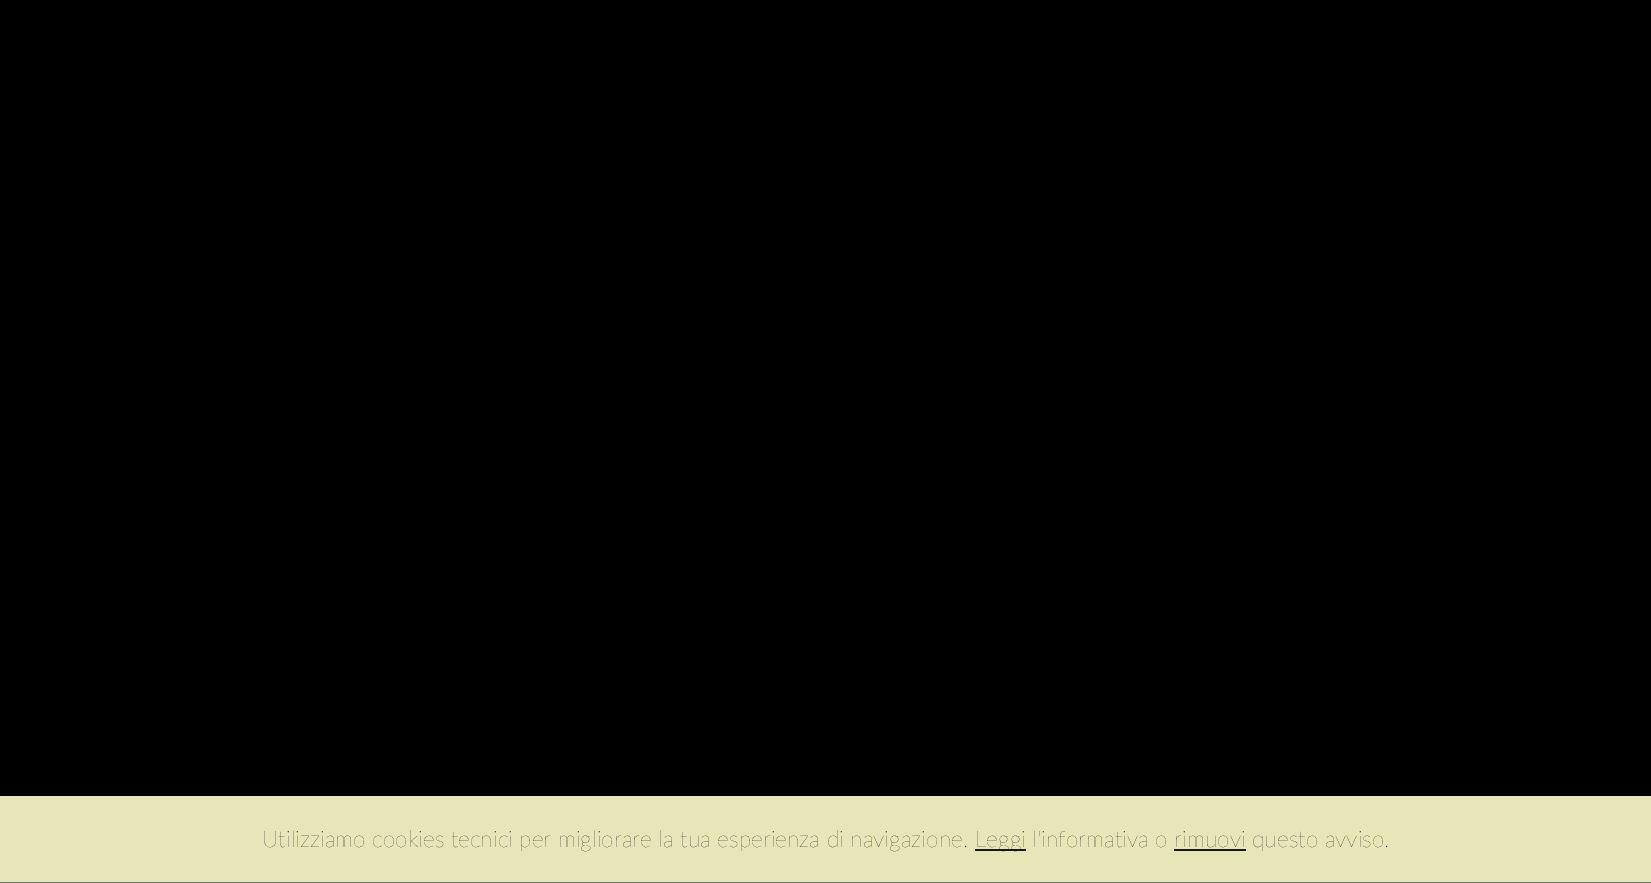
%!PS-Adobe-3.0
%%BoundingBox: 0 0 1651 883
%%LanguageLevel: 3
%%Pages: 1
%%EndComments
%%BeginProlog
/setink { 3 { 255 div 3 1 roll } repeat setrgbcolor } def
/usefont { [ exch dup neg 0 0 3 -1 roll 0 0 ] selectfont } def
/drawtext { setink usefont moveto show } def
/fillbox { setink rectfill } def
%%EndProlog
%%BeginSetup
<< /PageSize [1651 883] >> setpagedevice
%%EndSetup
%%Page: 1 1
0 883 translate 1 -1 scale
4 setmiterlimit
0 0 1651 883 0 0 0 fillbox
0 796 1651 86 230 230 184 fillbox
0 882 1651 1 115 115 115 fillbox
(Utilizziamo cookies tecnici per migliorare la tua esperienza di navigazione.) 262 847 /Lato-ExtraLight 22.75 23 23 23 drawtext
975 849 51 2 23 23 23 fillbox
(Leggi l'informativa o rimuovi questo avviso.) 975 847 /Lato-ExtraLight 22.75 23 23 23 drawtext
1174 849 72 2 23 23 23 fillbox
showpage
%%EOF
